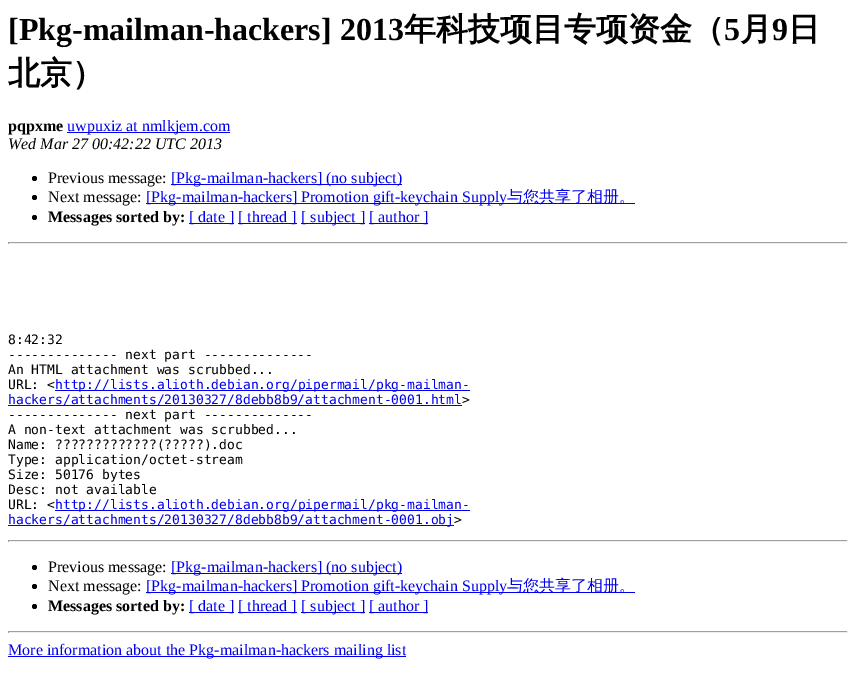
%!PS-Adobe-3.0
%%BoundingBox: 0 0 856 674
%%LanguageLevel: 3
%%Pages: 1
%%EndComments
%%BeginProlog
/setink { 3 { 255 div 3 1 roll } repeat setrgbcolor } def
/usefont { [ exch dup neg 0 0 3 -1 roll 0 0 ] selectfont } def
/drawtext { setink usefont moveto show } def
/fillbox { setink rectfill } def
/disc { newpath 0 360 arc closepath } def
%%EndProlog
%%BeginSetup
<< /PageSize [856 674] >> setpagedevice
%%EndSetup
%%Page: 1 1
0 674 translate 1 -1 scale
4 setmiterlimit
0 0 856 674 255 255 255 fillbox
([Pkg-mailman-hackers] 2013) 8 40 /LiberationSerif-Bold 32 0 0 0 drawtext
(年科技项目专项资金（) 404 40 /WenQuanYiZenHei-Bold 32 0 0 0 drawtext
(5) 724 40 /LiberationSerif-Bold 32 0 0 0 drawtext
(月) 740 40 /WenQuanYiZenHei-Bold 32 0 0 0 drawtext
(9) 772 40 /LiberationSerif-Bold 32 0 0 0 drawtext
(日) 788 40 /WenQuanYiZenHei-Bold 32 0 0 0 drawtext
(北京）) 8 84 /WenQuanYiZenHei-Bold 32 0 0 0 drawtext
(pqpxme) 8 131 /LiberationSerif-Bold 16 0 0 0 drawtext
67 132 163 1 0 0 238 fillbox
(uwpuxiz at nmlkjem.com) 67 131 /LiberationSerif-Regular 16 0 0 238 drawtext
(Wed Mar 27 00:42:22 UTC 2013) 8 149 /LiberationSerif-Italic 16 0 0 0 drawtext
34.5 178.5 2.5 disc fill
(Previous message:) 48 183 /LiberationSerif-Regular 16 0 0 0 drawtext
171 184 231 1 0 0 238 fillbox
([Pkg-mailman-hackers] \(no subject\)) 171 183 /LiberationSerif-Regular 16 0 0 238 drawtext
0 0 0 setink
34.5 197.5 2.5 disc fill
(Next message:) 48 202 /LiberationSerif-Regular 16 0 0 0 drawtext
146 203 489 1 0 0 238 fillbox
([Pkg-mailman-hackers] Promotion gift-keychain Supply) 146 202 /LiberationSerif-Regular 16 0 0 238 drawtext
(与您共享了相册。) 507 202 /WenQuanYiZenHei-Medium 16 0 0 238 drawtext
0 0 0 setink
34.5 217.5 2.5 disc fill
(Messages sorted by:) 48 222 /LiberationSerif-Bold 16 0 0 0 drawtext
189 223 45 1 0 0 238 fillbox
([ date ]) 189 222 /LiberationSerif-Regular 16 0 0 238 drawtext
238 223 59 1 0 0 238 fillbox
([ thread ]) 238 222 /LiberationSerif-Regular 16 0 0 238 drawtext
301 223 64 1 0 0 238 fillbox
([ subject ]) 301 222 /LiberationSerif-Regular 16 0 0 238 drawtext
369 223 59 1 0 0 238 fillbox
([ author ]) 369 222 /LiberationSerif-Regular 16 0 0 238 drawtext
8 242 840 1 159 159 159 fillbox
847 242 1 2 238 238 238 fillbox
8 243 840 1 238 238 238 fillbox
8 242 1 2 159 159 159 fillbox
(8:42:32) 8 344 /DejaVuSansMono-Regular 13 0 0 0 drawtext
(-------------- next part --------------) 8 359 /DejaVuSansMono-Regular 13 0 0 0 drawtext
(An HTML attachment was scrubbed...) 8 374 /DejaVuSansMono-Regular 13 0 0 0 drawtext
(URL: <) 8 389 /DejaVuSansMono-Regular 13 0 0 0 drawtext
55 390 415 1 0 0 238 fillbox
(http://lists.alioth.debian.org/pipermail/pkg-mailman-) 55 389 /DejaVuSansMono-Regular 13 0 0 238 drawtext
8 405 454 1 0 0 238 fillbox
(hackers/attachments/20130327/8debb8b9/attachment-0001.html) 8 404 /DejaVuSansMono-Regular 13 0 0 238 drawtext
(>) 462 404 /DejaVuSansMono-Regular 13 0 0 0 drawtext
(-------------- next part --------------) 8 419 /DejaVuSansMono-Regular 13 0 0 0 drawtext
(A non-text attachment was scrubbed...) 8 434 /DejaVuSansMono-Regular 13 0 0 0 drawtext
(Name: ?????????????\(?????\).doc) 8 449 /DejaVuSansMono-Regular 13 0 0 0 drawtext
(Type: application/octet-stream) 8 464 /DejaVuSansMono-Regular 13 0 0 0 drawtext
(Size: 50176 bytes) 8 479 /DejaVuSansMono-Regular 13 0 0 0 drawtext
(Desc: not available) 8 494 /DejaVuSansMono-Regular 13 0 0 0 drawtext
(URL: <) 8 509 /DejaVuSansMono-Regular 13 0 0 0 drawtext
55 510 415 1 0 0 238 fillbox
(http://lists.alioth.debian.org/pipermail/pkg-mailman-) 55 509 /DejaVuSansMono-Regular 13 0 0 238 drawtext
8 525 446 1 0 0 238 fillbox
(hackers/attachments/20130327/8debb8b9/attachment-0001.obj) 8 524 /DejaVuSansMono-Regular 13 0 0 238 drawtext
(>) 454 524 /DejaVuSansMono-Regular 13 0 0 0 drawtext
8 540 840 1 159 159 159 fillbox
847 540 1 2 238 238 238 fillbox
8 541 840 1 238 238 238 fillbox
8 540 1 2 159 159 159 fillbox
0 0 0 setink
34.5 567.5 2.5 disc fill
(Previous message:) 48 572 /LiberationSerif-Regular 16 0 0 0 drawtext
171 573 231 1 0 0 238 fillbox
([Pkg-mailman-hackers] \(no subject\)) 171 572 /LiberationSerif-Regular 16 0 0 238 drawtext
0 0 0 setink
34.5 586.5 2.5 disc fill
(Next message:) 48 591 /LiberationSerif-Regular 16 0 0 0 drawtext
146 592 489 1 0 0 238 fillbox
([Pkg-mailman-hackers] Promotion gift-keychain Supply) 146 591 /LiberationSerif-Regular 16 0 0 238 drawtext
(与您共享了相册。) 507 591 /WenQuanYiZenHei-Medium 16 0 0 238 drawtext
0 0 0 setink
34.5 606.5 2.5 disc fill
(Messages sorted by:) 48 611 /LiberationSerif-Bold 16 0 0 0 drawtext
189 612 45 1 0 0 238 fillbox
([ date ]) 189 611 /LiberationSerif-Regular 16 0 0 238 drawtext
238 612 59 1 0 0 238 fillbox
([ thread ]) 238 611 /LiberationSerif-Regular 16 0 0 238 drawtext
301 612 64 1 0 0 238 fillbox
([ subject ]) 301 611 /LiberationSerif-Regular 16 0 0 238 drawtext
369 612 59 1 0 0 238 fillbox
([ author ]) 369 611 /LiberationSerif-Regular 16 0 0 238 drawtext
8 631 840 1 159 159 159 fillbox
847 631 1 2 238 238 238 fillbox
8 632 840 1 238 238 238 fillbox
8 631 1 2 159 159 159 fillbox
8 656 398 1 0 0 238 fillbox
(More information about the Pkg-mailman-hackers mailing list) 8 655 /LiberationSerif-Regular 16 0 0 238 drawtext
showpage
%%EOF
